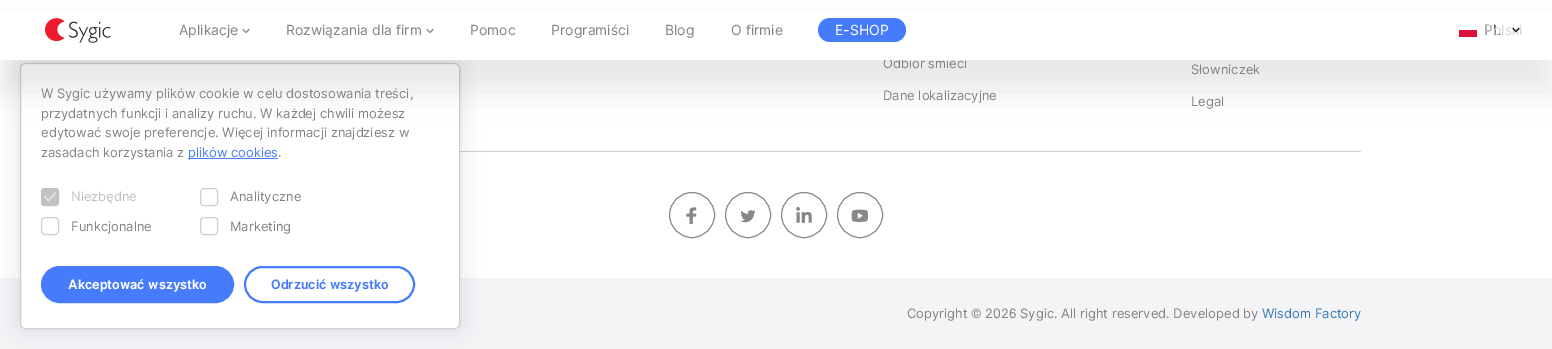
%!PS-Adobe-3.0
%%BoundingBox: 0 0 1552 349
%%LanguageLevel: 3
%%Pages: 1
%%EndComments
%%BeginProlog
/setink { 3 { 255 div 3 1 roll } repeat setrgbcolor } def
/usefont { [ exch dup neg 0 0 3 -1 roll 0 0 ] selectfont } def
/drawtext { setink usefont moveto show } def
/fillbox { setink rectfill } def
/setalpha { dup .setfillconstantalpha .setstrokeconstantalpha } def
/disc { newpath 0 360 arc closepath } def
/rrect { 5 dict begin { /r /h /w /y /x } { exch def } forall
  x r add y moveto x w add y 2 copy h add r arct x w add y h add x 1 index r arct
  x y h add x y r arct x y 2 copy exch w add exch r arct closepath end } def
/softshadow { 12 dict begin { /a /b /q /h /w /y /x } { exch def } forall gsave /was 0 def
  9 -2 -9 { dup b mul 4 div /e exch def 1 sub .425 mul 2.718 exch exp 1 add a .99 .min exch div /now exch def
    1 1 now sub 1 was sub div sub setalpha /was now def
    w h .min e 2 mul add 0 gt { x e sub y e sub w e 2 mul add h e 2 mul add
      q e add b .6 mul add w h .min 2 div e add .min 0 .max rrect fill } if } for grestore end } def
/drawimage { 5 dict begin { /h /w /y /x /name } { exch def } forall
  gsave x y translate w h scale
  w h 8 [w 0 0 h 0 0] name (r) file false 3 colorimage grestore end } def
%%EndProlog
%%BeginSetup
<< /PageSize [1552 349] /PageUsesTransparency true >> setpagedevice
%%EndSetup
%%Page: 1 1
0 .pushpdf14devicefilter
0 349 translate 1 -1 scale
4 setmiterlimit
0 0 1552 349 255 255 255 fillbox
460 151 901 1 207 207 207 fillbox
0 278 1552 71 244 244 247 fillbox
32 44 60 setink
20 63 440 266 5 10 0.15 softshadow
255 255 255 setink
20.5 63.5 439 265 4.5 rrect gsave fill grestore
207 207 207 setink
stroke
17 17 17 setink
0 30 1552 60 0 15 0.1 softshadow
(Odbiór śmieci) 883 68 /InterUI-Regular 13 131 131 133 drawtext
0 12 1552 48 255 255 255 fillbox
(assets/img1.rgb) 45 18 66 25 drawimage
(Aplikacje) 179 35 /InterUI-Regular 14 131 131 133 drawtext
(assets/img2.rgb) 242 28 8 6 drawimage
(Rozwiązania dla firm) 286 35 /InterUI-Regular 14 131 131 133 drawtext
(assets/img2.rgb) 426 28 8 6 drawimage
(Pomoc) 470 35 /InterUI-Regular 14 131 131 133 drawtext
(Programiści) 551 35 /InterUI-Regular 14 131 131 133 drawtext
(Blog) 665 35 /InterUI-Regular 14 131 131 133 drawtext
(O firmie) 731 35 /InterUI-Regular 14 131 131 133 drawtext
70 124 252 setink
818 18 88 24 12 rrect fill
(E-SHOP) 835 35 /InterUI-Regular 14 255 255 255 drawtext
(PL) 1484 35 /InterUI-Regular 14 17 17 17 drawtext
(Polski) 1484 35 /InterUI-Regular 14 212 212 212 drawtext
1459 30 18 7 220 20 60 fillbox
(assets/img3.rgb) 1512 27 8 6 drawimage
(W Sygic używamy plików cookie w celu dostosowania treści,) 41 98 /InterUI-Regular 13 131 131 133 drawtext
(przydatnych funkcji i analizy ruchu. W każdej chwili możesz) 41 118 /InterUI-Regular 13 131 131 133 drawtext
(edytować swoje preferencje. Więcej informacji znajdziesz w) 41 137 /InterUI-Regular 13 131 131 133 drawtext
(zasadach korzystania z) 41 157 /InterUI-Regular 13 131 131 133 drawtext
188 158 90 1 70 124 252 fillbox
(plików cookies) 188 157 /InterUI-Regular 13 70 124 252 drawtext
(.) 278 157 /InterUI-Regular 13 131 131 133 drawtext
193 193 194 setink
41 188 18 18 4 rrect fill
(assets/img4.rgb) 44 192 12 10 drawimage
41.5 188.5 17 17 3.5 rrect stroke
(Niezbędne) 71 201 /InterUI-Regular 13 193 193 194 drawtext
207 207 207 setink
200.5 188.5 17 17 3.5 rrect stroke
(Analityczne) 230 201 /InterUI-Regular 13 131 131 133 drawtext
207 207 207 setink
41.5 217.5 17 17 3.5 rrect stroke
(Funkcjonalne) 71 231 /InterUI-Regular 13 131 131 133 drawtext
207 207 207 setink
200.5 217.5 17 17 3.5 rrect stroke
(Marketing) 230 231 /InterUI-Regular 13 131 131 133 drawtext
70 124 252 setink
42 267 191 35 17.5 rrect gsave fill grestore
2 setlinewidth
stroke
(Akceptować wszystko) 68 289 /InterUI-Bold 13 255 255 255 drawtext
70 124 252 setink
245 267 169 35 17.5 rrect stroke
(Odrzucić wszystko) 271 289 /InterUI-Bold 13 70 124 252 drawtext
(Dane lokalizacyjne) 883 100 /InterUI-Regular 13 131 131 133 drawtext
(Słowniczek) 1191 74 /InterUI-Regular 13 131 131 133 drawtext
(Legal) 1191 106 /InterUI-Regular 13 131 131 133 drawtext
136 136 136 setink
1 setlinewidth
692 215 22.5 disc stroke
(assets/img5.rgb) 686 207 11 17 drawimage
748 215 22.5 disc stroke
(assets/img6.rgb) 740 210 16 13 drawimage
804 215 22.5 disc stroke
(assets/img7.rgb) 796 207 16 16 drawimage
860 215 22.5 disc stroke
(assets/img8.rgb) 851 209 18 13 drawimage
(Copyright © 2026 Sygic. All right reserved. Developed by) 907 318 /InterUI-Regular 13 131 131 133 drawtext
(Wisdom Factory) 1262 318 /InterUI-Regular 13 51 122 183 drawtext
.poppdf14devicefilter showpage
%%EOF
